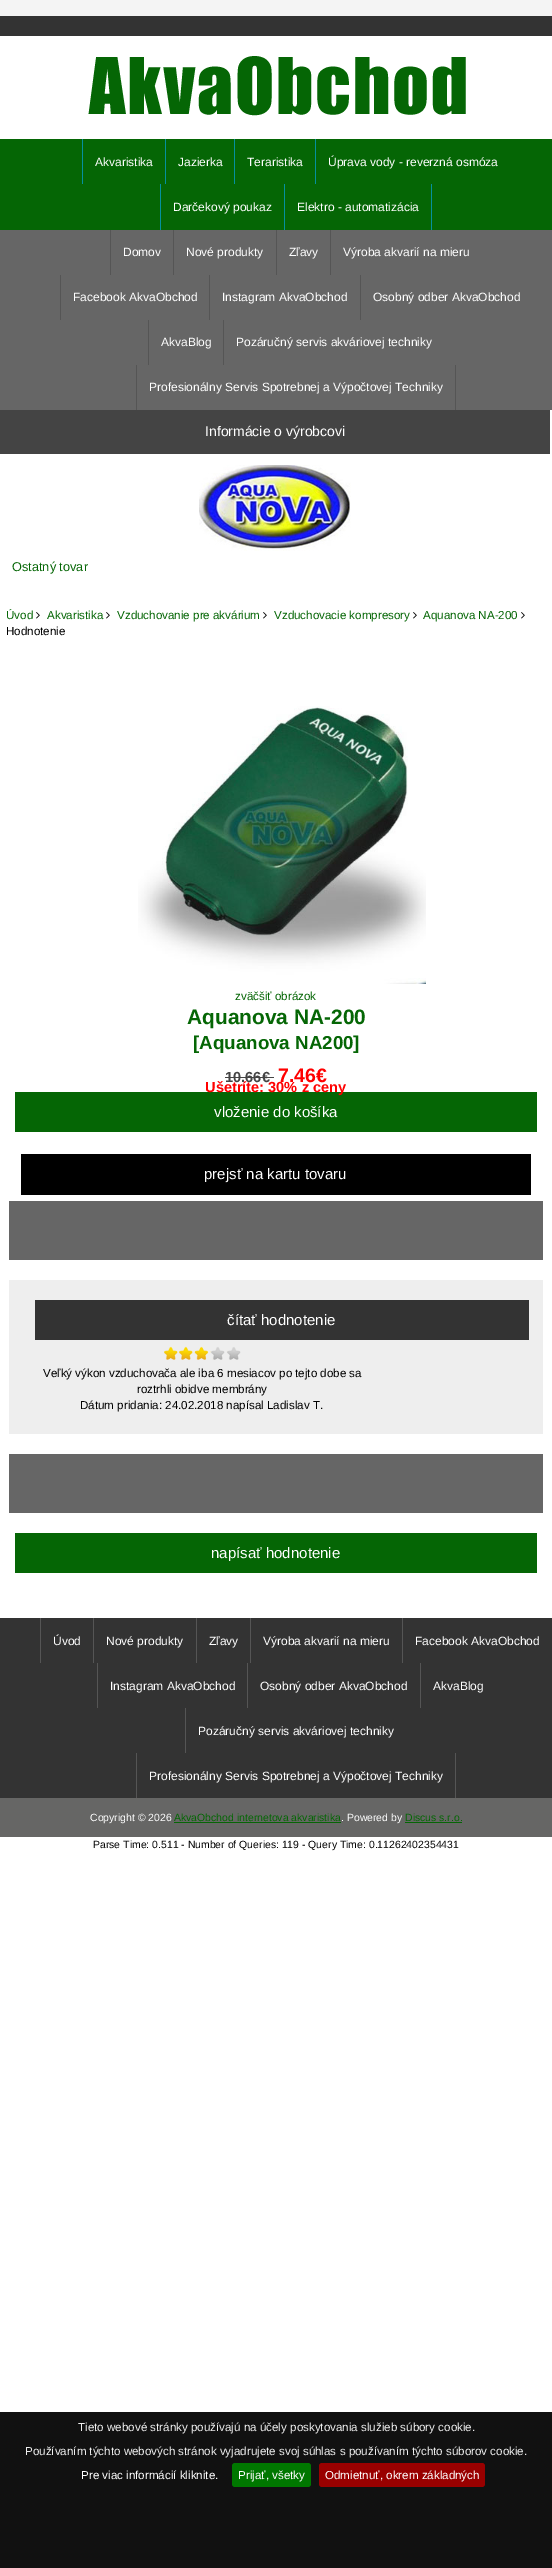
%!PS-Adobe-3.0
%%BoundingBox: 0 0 552 2568
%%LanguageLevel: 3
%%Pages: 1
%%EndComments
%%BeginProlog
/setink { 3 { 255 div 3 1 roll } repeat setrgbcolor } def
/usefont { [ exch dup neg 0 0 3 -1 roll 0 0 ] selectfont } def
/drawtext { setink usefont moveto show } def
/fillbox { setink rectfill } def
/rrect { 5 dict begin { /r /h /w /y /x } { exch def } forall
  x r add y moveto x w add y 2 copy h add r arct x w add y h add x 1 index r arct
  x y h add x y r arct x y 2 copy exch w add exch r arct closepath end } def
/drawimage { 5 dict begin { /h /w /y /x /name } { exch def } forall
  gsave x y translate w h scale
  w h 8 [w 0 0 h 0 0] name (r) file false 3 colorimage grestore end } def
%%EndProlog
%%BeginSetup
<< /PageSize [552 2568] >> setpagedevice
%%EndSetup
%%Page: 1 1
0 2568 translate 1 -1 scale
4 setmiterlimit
0 0 552 2568 255 255 255 fillbox
0 0 552 16 244 244 244 fillbox
0 16 552 20 51 51 51 fillbox
(assets/img1.rgb) 88 56 378 60 drawimage
0 139 552 91 5 102 5 fillbox
82 139 1 45 5 145 159 fillbox
(Akvaristika) 95 166 /LiberationSans-Regular 12 255 255 255 drawtext
165 139 1 45 5 145 159 fillbox
(Jazierka) 178 166 /LiberationSans-Regular 12 255 255 255 drawtext
234 139 1 45 5 145 159 fillbox
(Teraristika) 247 166 /LiberationSans-Regular 12 255 255 255 drawtext
315 139 1 45 5 145 159 fillbox
(Úprava vody - reverzná osmóza) 328 166 /LiberationSans-Regular 12 255 255 255 drawtext
160 184 1 46 5 145 159 fillbox
(Darčekový poukaz) 173 211 /LiberationSans-Regular 12 255 255 255 drawtext
431 184 1 46 5 145 159 fillbox
284 184 1 46 5 145 159 fillbox
(Elektro - automatizácia) 297 211 /LiberationSans-Regular 12 255 255 255 drawtext
0 230 552 180 102 102 102 fillbox
110 230 1 45 85 85 85 fillbox
(Domov) 123 256 /LiberationSans-Regular 12 255 255 255 drawtext
173 230 1 45 85 85 85 fillbox
(Nové produkty) 186 256 /LiberationSans-Regular 12 255 255 255 drawtext
276 230 1 45 85 85 85 fillbox
(Zľavy) 289 256 /LiberationSans-Regular 12 255 255 255 drawtext
330 230 1 45 85 85 85 fillbox
(Výroba akvarií na mieru) 343 256 /LiberationSans-Regular 12 255 255 255 drawtext
60 275 1 45 85 85 85 fillbox
(Facebook AkvaObchod) 73 301 /LiberationSans-Regular 12 255 255 255 drawtext
209 275 1 45 85 85 85 fillbox
(Instagram AkvaObchod) 222 301 /LiberationSans-Regular 12 255 255 255 drawtext
360 275 1 45 85 85 85 fillbox
(Osobný odber AkvaObchod) 373 301 /LiberationSans-Regular 12 255 255 255 drawtext
148 320 1 45 85 85 85 fillbox
(AkvaBlog) 161 346 /LiberationSans-Regular 12 255 255 255 drawtext
223 320 1 45 85 85 85 fillbox
(Pozáručný servis akváriovej techniky) 236 346 /LiberationSans-Regular 12 255 255 255 drawtext
455 365 1 45 85 85 85 fillbox
136 365 1 45 85 85 85 fillbox
(Profesionálny Servis Spotrebnej a Výpočtovej Techniky) 149 391 /LiberationSans-Regular 12 255 255 255 drawtext
0 410 550 44 68 68 68 fillbox
(Informácie o výrobcovi) 205 436 /LiberationSans-Regular 14 255 255 255 drawtext
(assets/img2.rgb) 199 465 152 86 drawimage
(Ostatný tovar) 12 571 /LiberationSans-Regular 12.75 5 102 5 drawtext
(Úvod) 6 619 /LiberationSans-Regular 11.6 5 102 5 drawtext
(assets/img3.rgb) 36 612 4 7 drawimage
(Akvaristika) 47 619 /LiberationSans-Regular 11.6 5 102 5 drawtext
(assets/img3.rgb) 106 612 4 7 drawimage
(Vzduchovanie pre akvárium) 117 619 /LiberationSans-Regular 11.6 5 102 5 drawtext
(assets/img3.rgb) 263 612 4 7 drawimage
(Vzduchovacie kompresory) 274 619 /LiberationSans-Regular 11.6 5 102 5 drawtext
(assets/img3.rgb) 413 612 4 7 drawimage
(Aquanova NA-200) 423 619 /LiberationSans-Regular 11.6 5 102 5 drawtext
(assets/img3.rgb) 521 612 4 7 drawimage
(Hodnotenie) 6 635 /LiberationSans-Regular 11.6 0 0 0 drawtext
(assets/img4.rgb) 138 706 288 278 drawimage
(zväčšiť obrázok) 235 1000 /LiberationSans-Regular 11.6 5 102 5 drawtext
(Aquanova NA-200) 187 1024 /LiberationSans-Bold 20.9 5 102 5 drawtext
([Aquanova NA200]) 193 1049 /LiberationSans-Bold 18.75 5 102 5 drawtext
(10.66€) 225 1082 /LiberationSans-Bold 14.6 68 68 68 drawtext
225 1077 49 1 68 68 68 fillbox
(7.46€) 278 1082 /LiberationSans-Bold 19.5 255 0 0 drawtext
15 1092 522 40 5 102 5 fillbox
(Ušetríte: 30% z ceny) 205 1092 /LiberationSans-Bold 14.6 255 0 0 drawtext
(vloženie do košíka) 214 1117 /LiberationSans-Regular 15 255 255 255 drawtext
21 1154 510 41 0 0 0 fillbox
(prejsť na kartu tovaru) 204 1179 /LiberationSans-Regular 15 255 255 255 drawtext
9 1201 534 59 102 102 102 fillbox
9 1280 534 154 238 238 238 fillbox
35 1300 494 40 51 51 51 fillbox
(čítať hodnotenie) 227 1325 /LiberationSans-Regular 15 255 255 255 drawtext
(assets/img5.rgb) 164 1346 77 14 drawimage
(Veľký výkon vzduchovača ale iba 6 mesiacov po tejto dobe sa) 43 1377 /LiberationSans-Regular 11.6 0 0 0 drawtext
(roztrhli obidve membrány) 137 1393 /LiberationSans-Regular 11.6 0 0 0 drawtext
(Dátum pridania: 24.02.2018 napísal Ladislav T.) 80 1409 /LiberationSans-Regular 11.6 0 0 0 drawtext
9 1454 534 59 102 102 102 fillbox
15 1533 522 40 5 102 5 fillbox
(napísať hodnotenie) 211 1558 /LiberationSans-Regular 15 255 255 255 drawtext
0 1618 552 180 51 51 51 fillbox
40 1618 1 45 85 85 85 fillbox
(Úvod) 53 1645 /LiberationSans-Regular 12 255 255 255 drawtext
93 1618 1 45 85 85 85 fillbox
(Nové produkty) 106 1645 /LiberationSans-Regular 12 255 255 255 drawtext
196 1618 1 45 85 85 85 fillbox
(Zľavy) 209 1645 /LiberationSans-Regular 12 255 255 255 drawtext
250 1618 1 45 85 85 85 fillbox
(Výroba akvarií na mieru) 263 1645 /LiberationSans-Regular 12 255 255 255 drawtext
402 1618 1 45 85 85 85 fillbox
(Facebook AkvaObchod) 415 1645 /LiberationSans-Regular 12 255 255 255 drawtext
97 1663 1 45 85 85 85 fillbox
(Instagram AkvaObchod) 110 1690 /LiberationSans-Regular 12 255 255 255 drawtext
247 1663 1 45 85 85 85 fillbox
(Osobný odber AkvaObchod) 260 1690 /LiberationSans-Regular 12 255 255 255 drawtext
420 1663 1 45 85 85 85 fillbox
(AkvaBlog) 433 1690 /LiberationSans-Regular 12 255 255 255 drawtext
185 1708 1 45 85 85 85 fillbox
(Pozáručný servis akváriovej techniky) 198 1735 /LiberationSans-Regular 12 255 255 255 drawtext
455 1753 1 45 85 85 85 fillbox
136 1753 1 45 85 85 85 fillbox
(Profesionálny Servis Spotrebnej a Výpočtovej Techniky) 149 1780 /LiberationSans-Regular 12 255 255 255 drawtext
0 1798 552 39 102 102 101 fillbox
(Copyright © 2026) 90 1821 /LiberationSans-Regular 10.45 255 255 255 drawtext
(AkvaObchod internetova akvaristika) 174 1821 /LiberationSans-Regular 10.45 5 102 5 drawtext
174 1822 167 1 5 102 5 fillbox
(. Powered by) 341 1821 /LiberationSans-Regular 10.45 255 255 255 drawtext
(Discus s.r.o.) 405 1821 /LiberationSans-Regular 10.45 5 102 5 drawtext
405 1822 57 1 5 102 5 fillbox
(Parse Time: 0.511 - Number of Queries: 119 - Query Time: 0.11262402354431) 93 1848 /LiberationSans-Regular 10.45 0 0 0 drawtext
0 2412 552 156 17 17 17 fillbox
(Tieto webové stránky používajú na účely poskytovania služieb súbory cookie.) 78 2431 /LiberationSans-Regular 11.6 238 238 238 drawtext
(Používaním týchto webových stránok vyjadrujete svoj súhlas s používaním týchto súborov cookie.) 25 2455 /LiberationSans-Regular 11.6 238 238 238 drawtext
(Pre viac informácií kliknite.) 81 2479 /LiberationSans-Regular 11.6 255 255 255 drawtext
0 119 0 setink
232 2463 79 24 3 rrect fill
(Prijať, všetky) 238 2479 /LiberationSans-Regular 11.6 255 255 255 drawtext
153 0 0 setink
319 2463 166 24 3 rrect fill
(Odmietnuť, okrem základných) 325 2479 /LiberationSans-Regular 11.6 255 255 255 drawtext
showpage
%%EOF
